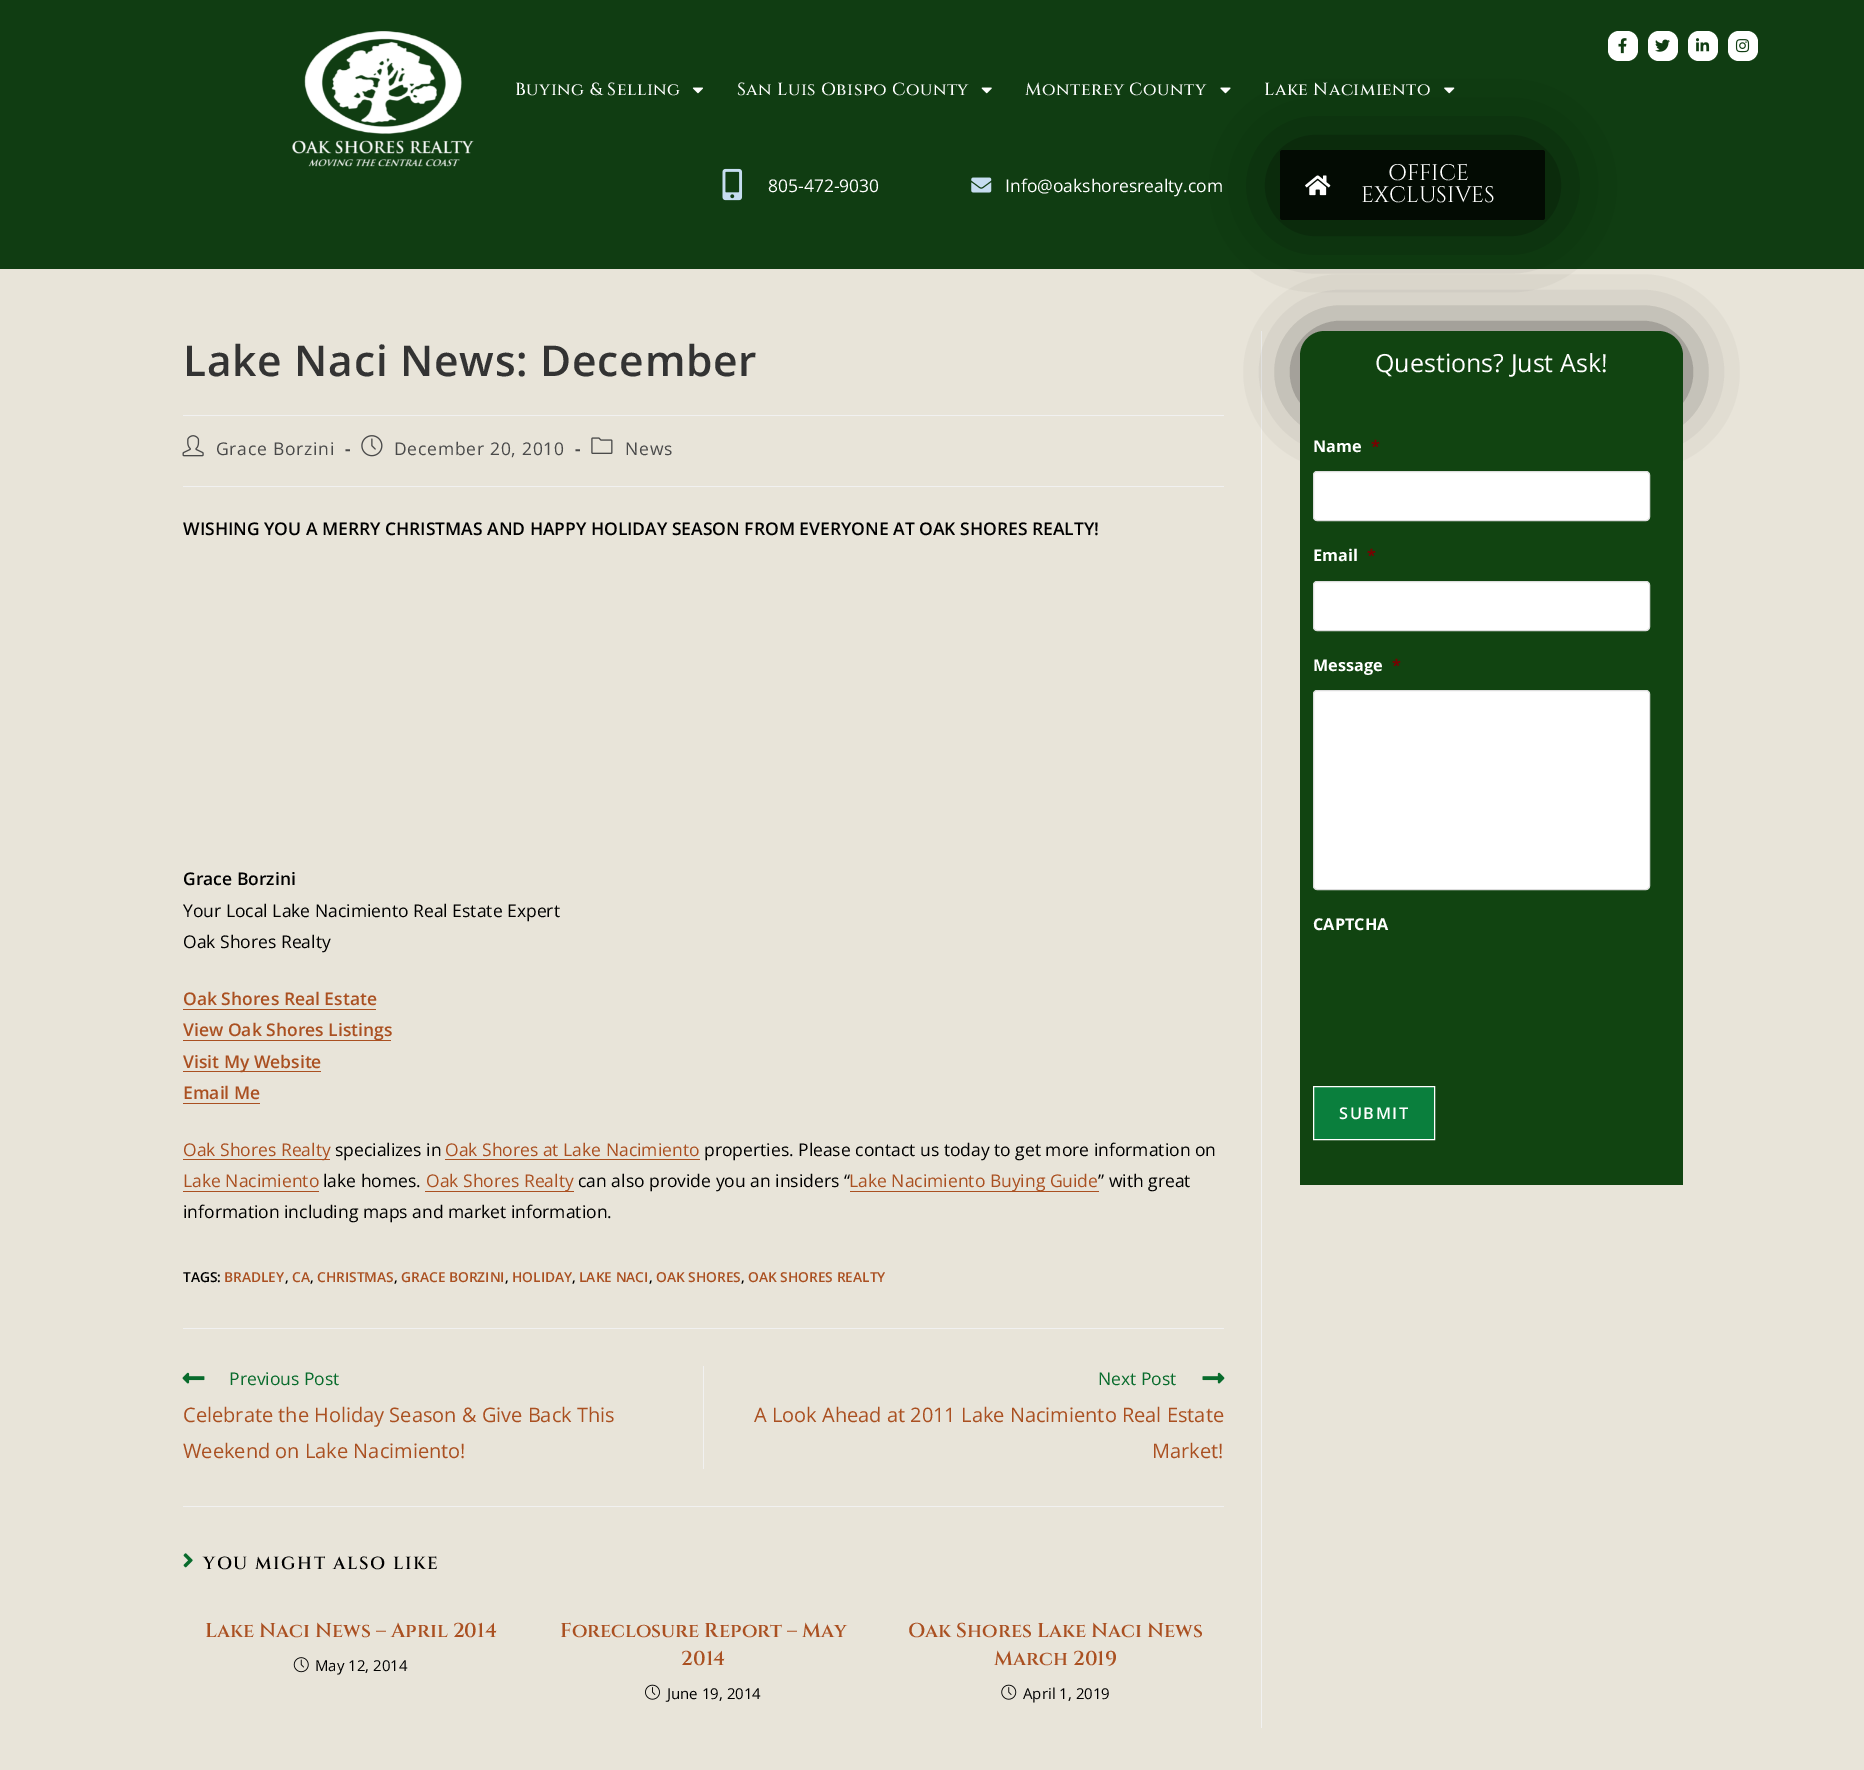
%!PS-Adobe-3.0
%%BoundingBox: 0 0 1864 1770
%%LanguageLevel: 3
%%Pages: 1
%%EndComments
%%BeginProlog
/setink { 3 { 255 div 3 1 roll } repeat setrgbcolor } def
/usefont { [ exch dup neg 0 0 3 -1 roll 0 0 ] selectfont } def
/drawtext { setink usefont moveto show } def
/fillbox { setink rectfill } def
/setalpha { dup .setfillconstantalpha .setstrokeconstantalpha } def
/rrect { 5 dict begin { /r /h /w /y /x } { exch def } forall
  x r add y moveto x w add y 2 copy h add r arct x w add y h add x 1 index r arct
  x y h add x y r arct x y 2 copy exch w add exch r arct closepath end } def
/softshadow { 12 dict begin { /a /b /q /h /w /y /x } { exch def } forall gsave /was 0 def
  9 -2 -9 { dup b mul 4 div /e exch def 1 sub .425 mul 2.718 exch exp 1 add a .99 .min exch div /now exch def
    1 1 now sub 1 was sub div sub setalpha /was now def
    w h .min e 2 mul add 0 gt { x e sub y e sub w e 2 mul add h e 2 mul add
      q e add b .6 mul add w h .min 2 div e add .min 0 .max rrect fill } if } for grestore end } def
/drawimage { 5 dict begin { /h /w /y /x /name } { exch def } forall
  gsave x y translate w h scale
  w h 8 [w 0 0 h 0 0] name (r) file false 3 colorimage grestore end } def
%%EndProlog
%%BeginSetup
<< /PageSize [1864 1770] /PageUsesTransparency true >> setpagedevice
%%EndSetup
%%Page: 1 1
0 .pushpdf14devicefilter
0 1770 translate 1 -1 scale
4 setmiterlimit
0 0 1864 1770 232 228 217 fillbox
1261 331 1 1397 241 241 241 fillbox
183 415 1041 1 241 241 241 fillbox
183 486 1041 1 241 241 241 fillbox
0 0 0 setink
1313 344 357 56 13 31 1 softshadow
0 0 1864 269 16 61 18 fillbox
(assets/img1.rgb) 292 31 182 136 drawimage
255 255 255 setink
1608 31 30 30 11 rrect fill
(assets/img2.rgb) 1618 38 9 16 drawimage
1648 31 30 30 11 rrect fill
(assets/img3.rgb) 1655 39 15 13 drawimage
1688 31 30 30 11 rrect fill
(assets/img4.rgb) 1696 38 14 14 drawimage
1728 31 30 30 11 rrect fill
(assets/img5.rgb) 1735 39 15 14 drawimage
/Cinzel-Medium 17.5 usefont
515 95 moveto 0.5 0 (Buying & Selling) ashow
(assets/img6.rgb) 692 87 11 7 drawimage
737 95 moveto 0.5 0 (San Luis Obispo County) ashow
(assets/img7.rgb) 981 87 11 7 drawimage
0 0 0 setink
1293 163 240 45 0 37.5 1 softshadow
255 255 255 setink
1025 95 moveto 0.5 0 (Monterey County) ashow
(assets/img8.rgb) 1220 87 11 7 drawimage
1264 95 moveto 0.5 0 (Lake Nacimiento) ashow
(assets/img9.rgb) 1444 87 11 7 drawimage
(assets/img10.rgb) 722 168 21 33 drawimage
(805-472-9030) 768 192 /OpenSans-Regular 17.5 255 255 255 drawtext
(assets/img11.rgb) 971 177 21 16 drawimage
(Info@oakshoresrealty.com) 1005 192 /OpenSans-Regular 17.5 255 255 255 drawtext
3 11 3 setink
1280 150 265 70 2.5 rrect fill
(assets/img12.rgb) 1305 175 26 21 drawimage
(OFFICE) 1388 180 /Cinzel-Regular 22.5 255 255 255 drawtext
(EXCLUSIVES) 1361 202 /Cinzel-Regular 22.5 255 255 255 drawtext
/OpenSans-SemiBold 42.5 usefont
51 51 51 setink
183 376 moveto 0.75 0 (Lake Naci News: December) ashow
(assets/img13.rgb) 182 435 22 22 drawimage
/OpenSans-Regular 17.5 usefont
74 74 74 setink
216 455 moveto 0.75 0 (Grace Borzini) ashow
/OpenSans-Bold 17.5 usefont
345 455 moveto 0.75 0 (-) ashow
(assets/img14.rgb) 361 435 22 22 drawimage
/OpenSans-Regular 17.5 usefont
394 455 moveto 0.75 0 (December 20, 2010) ashow
/OpenSans-Bold 17.5 usefont
575 455 moveto 0.75 0 (-) ashow
(assets/img15.rgb) 591 437 22 17 drawimage
/OpenSans-Regular 17.5 usefont
625 455 moveto 0.75 0 (News) ashow
(WISHING YOU A MERRY CHRISTMAS AND HAPPY HOLIDAY SEASON FROM EVERYONE AT OAK SHORES REALTY!) 183 535 /OpenSans-SemiBold 17.5 0 0 0 drawtext
(Grace Borzini) 183 885 /OpenSans-SemiBold 17.5 0 0 0 drawtext
(Your Local Lake Nacimiento Real Estate Expert) 183 917 /OpenSans-Regular 17.5 0 0 0 drawtext
(Oak Shores Realty) 183 948 /OpenSans-Regular 17.5 0 0 0 drawtext
(Oak Shores Real Estate) 183 1005 /OpenSans-SemiBold 17.5 170 80 33 drawtext
183 1009 193 1 170 80 33 fillbox
183 1040 208 1 170 80 33 fillbox
(View Oak Shores Listings) 183 1036 /OpenSans-SemiBold 17.5 170 80 33 drawtext
183 1071 138 1 170 80 33 fillbox
(Visit My Website) 183 1068 /OpenSans-SemiBold 17.5 170 80 33 drawtext
(Email Me) 183 1099 /OpenSans-SemiBold 17.5 170 80 33 drawtext
183 1103 77 1 170 80 33 fillbox
183 1159 147 1 170 80 33 fillbox
(Oak Shores Realty) 183 1156 /OpenSans-Regular 17.5 170 80 33 drawtext
(specializes in) 335 1156 /OpenSans-Regular 17.5 0 0 0 drawtext
(Oak Shores at Lake Nacimiento) 445 1156 /OpenSans-Regular 17.5 170 80 33 drawtext
445 1159 255 1 170 80 33 fillbox
(properties. Please contact us today to get more information on) 704 1156 /OpenSans-Regular 17.5 0 0 0 drawtext
(Lake Nacimiento) 183 1187 /OpenSans-Regular 17.5 170 80 33 drawtext
183 1191 136 1 170 80 33 fillbox
(lake homes.) 323 1187 /OpenSans-Regular 17.5 0 0 0 drawtext
425 1191 149 1 170 80 33 fillbox
(Oak Shores Realty) 426 1187 /OpenSans-Regular 17.5 170 80 33 drawtext
(can also provide you an insiders “) 578 1187 /OpenSans-Regular 17.5 0 0 0 drawtext
850 1191 249 1 170 80 33 fillbox
(Lake Nacimiento Buying Guide) 849 1187 /OpenSans-Regular 17.5 170 80 33 drawtext
(” with great) 1098 1187 /OpenSans-Regular 17.5 0 0 0 drawtext
(information including maps and market information.) 183 1218 /OpenSans-Regular 17.5 0 0 0 drawtext
(TAGS:) 183 1282 /OpenSans-SemiBold 13.75 0 0 0 drawtext
(BRADLEY) 224 1282 /OpenSans-SemiBold 13.75 170 80 33 drawtext
(,) 285 1282 /OpenSans-SemiBold 13.75 0 0 0 drawtext
(CA) 292 1282 /OpenSans-SemiBold 13.75 170 80 33 drawtext
(,) 310 1282 /OpenSans-SemiBold 13.75 0 0 0 drawtext
(CHRISTMAS) 317 1282 /OpenSans-SemiBold 13.75 170 80 33 drawtext
(,) 394 1282 /OpenSans-SemiBold 13.75 0 0 0 drawtext
(GRACE BORZINI) 401 1282 /OpenSans-SemiBold 13.75 170 80 33 drawtext
(,) 505 1282 /OpenSans-SemiBold 13.75 0 0 0 drawtext
(HOLIDAY) 512 1282 /OpenSans-SemiBold 13.75 170 80 33 drawtext
(,) 572 1282 /OpenSans-SemiBold 13.75 0 0 0 drawtext
(LAKE NACI) 579 1282 /OpenSans-SemiBold 13.75 170 80 33 drawtext
(,) 649 1282 /OpenSans-SemiBold 13.75 0 0 0 drawtext
(OAK SHORES) 656 1282 /OpenSans-SemiBold 13.75 170 80 33 drawtext
(,) 741 1282 /OpenSans-SemiBold 13.75 0 0 0 drawtext
(OAK SHORES REALTY) 748 1282 /OpenSans-SemiBold 13.75 170 80 33 drawtext
183 1328 1041 1 241 241 241 fillbox
703 1366 1 103 241 241 241 fillbox
(assets/img16.rgb) 182 1372 23 12 drawimage
(Previous Post) 229 1385 /OpenSans-Regular 17.5 8 107 44 drawtext
(Celebrate the Holiday Season & Give Back This) 183 1422 /OpenSans-Regular 20 170 80 33 drawtext
(Weekend on Lake Nacimiento!) 183 1458 /OpenSans-Regular 20 170 80 33 drawtext
(Next Post) 1098 1385 /OpenSans-Regular 17.5 8 107 44 drawtext
(assets/img17.rgb) 1202 1372 23 12 drawimage
(A Look Ahead at 2011 Lake Nacimiento Real Estate) 754 1422 /OpenSans-Regular 20 170 80 33 drawtext
(Market!) 1152 1458 /OpenSans-Regular 20 170 80 33 drawtext
183 1506 1041 1 241 241 241 fillbox
(assets/img18.rgb) 183 1553 10 15 drawimage
/Cinzel-SemiBold 17.5 usefont
0 0 0 setink
203 1569 moveto 1.6 0 (YOU MIGHT ALSO LIKE) ashow
(Lake Naci News – April 2014) 205 1637 /Cinzel-SemiBold 20 170 80 33 drawtext
(assets/img19.rgb) 293 1657 16 16 drawimage
(May 12, 2014) 315 1671 /OpenSans-Regular 15 0 0 0 drawtext
(Foreclosure Report – May) 560 1637 /Cinzel-SemiBold 20 170 80 33 drawtext
(2014) 681 1665 /Cinzel-SemiBold 20 170 80 33 drawtext
(assets/img20.rgb) 645 1684 15 16 drawimage
(June 19, 2014) 667 1699 /OpenSans-Regular 15 0 0 0 drawtext
(Oak Shores Lake Naci News) 908 1637 /Cinzel-SemiBold 20 170 80 33 drawtext
(March 2019) 994 1665 /Cinzel-SemiBold 20 170 80 33 drawtext
(assets/img21.rgb) 1001 1684 16 16 drawimage
(April 1, 2019) 1023 1699 /OpenSans-Regular 15 0 0 0 drawtext
17 68 17 setink
1325 331 moveto 1658 331 lineto 1672 331 1683 342 1683 356 curveto 1683 413 lineto 1300 413 lineto 1300 356 lineto 1300 342 1311 331 1325 331 curveto closepath fill
(Questions? Just Ask!) 1375 372 /OpenSans-Regular 25 255 255 255 drawtext
1300 413 383 772 17 68 17 fillbox
(Name) 1313 452 /OpenSans-Bold 16.25 255 255 255 drawtext
(*) 1371 452 /OpenSans-Bold 16.25 121 0 0 drawtext
255 255 255 setink
1313.5 471.5 336 49 3.5 rrect gsave fill grestore
221 221 221 setink
stroke
(Email) 1313 561 /OpenSans-Bold 16.25 255 255 255 drawtext
(*) 1367 561 /OpenSans-Bold 16.25 121 0 0 drawtext
255 255 255 setink
1313.5 581.5 336 49 3.5 rrect gsave fill grestore
221 221 221 setink
stroke
(Message) 1313 671 /OpenSans-Bold 16.25 255 255 255 drawtext
(*) 1392 671 /OpenSans-Bold 16.25 121 0 0 drawtext
255 255 255 setink
1313.5 690.5 336 199 3.5 rrect gsave fill grestore
221 221 221 setink
stroke
(CAPTCHA) 1313 930 /OpenSans-Bold 16.25 255 255 255 drawtext
10 127 61 setink
1313.5 1086.5 moveto 1434.5 1086.5 lineto 1434.5 1139.5 lineto 1313.5 1139.5 lineto closepath gsave fill grestore
255 255 255 setink
stroke
/OpenSans-SemiBold 16.25 usefont
1339 1119 moveto 1.6 0 (SUBMIT) ashow
.poppdf14devicefilter showpage
%%EOF
